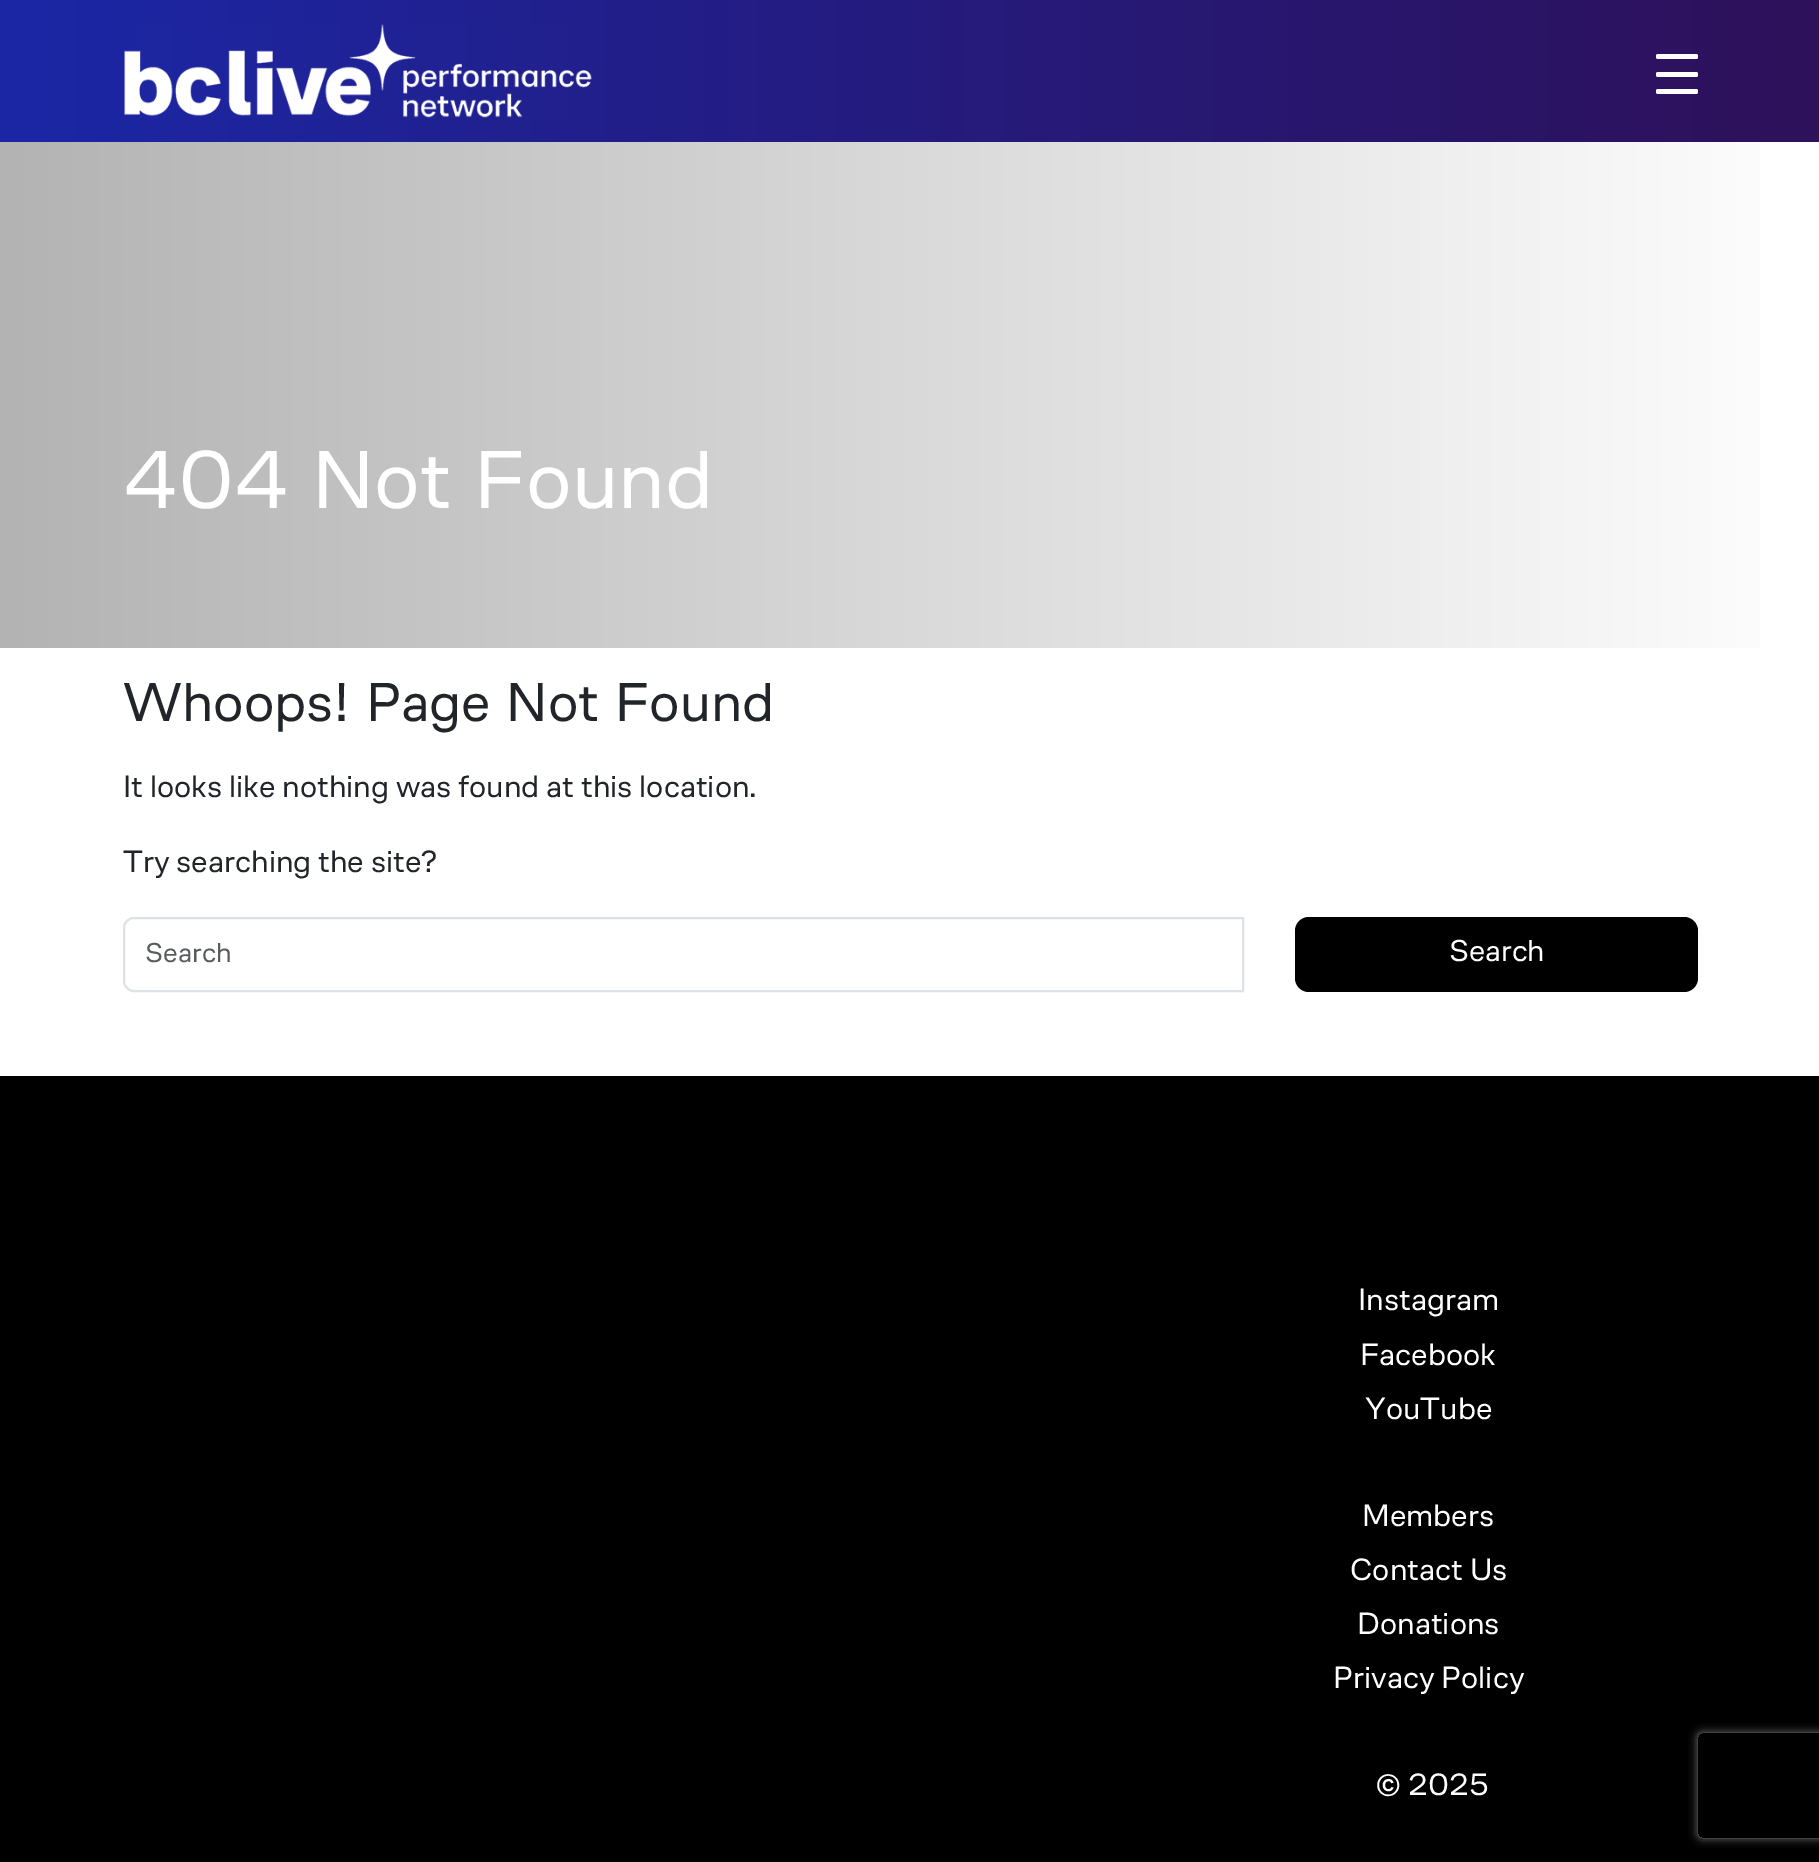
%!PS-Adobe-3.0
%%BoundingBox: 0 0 1819 1862
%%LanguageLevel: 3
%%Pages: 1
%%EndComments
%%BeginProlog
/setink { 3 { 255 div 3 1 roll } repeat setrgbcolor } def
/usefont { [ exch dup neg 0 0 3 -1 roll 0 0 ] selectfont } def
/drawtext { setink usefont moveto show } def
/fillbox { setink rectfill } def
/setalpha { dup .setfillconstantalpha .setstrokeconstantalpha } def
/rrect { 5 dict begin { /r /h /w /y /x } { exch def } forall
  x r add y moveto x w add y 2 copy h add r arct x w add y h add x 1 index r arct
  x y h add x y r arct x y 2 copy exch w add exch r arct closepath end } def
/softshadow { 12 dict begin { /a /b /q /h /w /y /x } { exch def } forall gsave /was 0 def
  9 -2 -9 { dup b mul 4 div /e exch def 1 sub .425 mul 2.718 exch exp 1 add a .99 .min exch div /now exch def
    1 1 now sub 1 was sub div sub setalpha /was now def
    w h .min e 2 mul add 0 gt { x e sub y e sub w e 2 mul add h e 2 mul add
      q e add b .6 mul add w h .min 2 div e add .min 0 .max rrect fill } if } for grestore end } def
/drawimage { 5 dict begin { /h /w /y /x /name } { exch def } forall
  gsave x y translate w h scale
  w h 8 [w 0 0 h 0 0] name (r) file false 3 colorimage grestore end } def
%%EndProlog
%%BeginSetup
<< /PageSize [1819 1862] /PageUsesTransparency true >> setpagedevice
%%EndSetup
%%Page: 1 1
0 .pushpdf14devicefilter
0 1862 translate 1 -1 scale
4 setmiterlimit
0 0 1819 1862 255 255 255 fillbox
gsave 0 0 moveto 1819 0 lineto 1819 142 lineto 0 142 lineto closepath clip newpath
<< /ShadingType 2 /ColorSpace /DeviceRGB /Coords [0 0 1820 0] /Extend [true true] /Function << /FunctionType 3 /Domain [0 1] /Functions [<< /FunctionType 2 /Domain [0 1] /C0 [0.106 0.153 0.651] /C1 [0.145 0.106 0.494] /N 1 >> << /FunctionType 2 /Domain [0 1] /C0 [0.145 0.106 0.494] /C1 [0.18 0.067 0.353] /N 1 >>] /Bounds [0.5] /Encode [0 1 0 1] >> >> shfill grestore
(assets/img1.rgb) 124 24 468 94 drawimage
1656 54 42 5 2 rrect fill
1656 72 42 5 2 rrect fill
1656 89 42 5 2 rrect fill
gsave 0 142 moveto 1760 142 lineto 1760 648 lineto 0 648 lineto closepath clip newpath
<< /ShadingType 2 /ColorSpace /DeviceRGB /Coords [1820 324 0 324] /Extend [true true] /Function << /FunctionType 2 /Domain [0 1] /C0 [1 1 1] /C1 [0.702 0.702 0.702] /N 1 >> >> shfill grestore
/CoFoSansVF-Regular 84 usefont
123 508 moveto 5 0 32 (404 Not Found) widthshow
/CoFoSansVF-Regular 56 usefont
33 37 41 setink
123 721 moveto 3.5 0 32 (Whoops! Page Not Found) widthshow
(It looks like nothing was found at this location.) 123 797 /CoFoSansVF-Regular 31.5 33 37 41 drawtext
(Try searching the site?) 123 872 /CoFoSansVF-Regular 31.5 33 37 41 drawtext
222 226 230 setink
2 setlinewidth
134 918 moveto 1243 918 lineto 1243 991 lineto 134 991 lineto 128.5 991 124 986.5 124 981 curveto 124 928 lineto 124 922.5 128.5 918 134 918 curveto closepath stroke
(Search) 145 962 /CoFoSansVF-Regular 28 89 92 95 drawtext
0 0 0 setink
1295 917 403 75 14 rrect fill
(Search) 1449 961 /CoFoSansVF-Regular 31 255 255 255 drawtext
0 1076 1819 786 0 0 0 fillbox
(Instagram) 1358 1310 /CoFoSansVF-Regular 31.5 255 255 255 drawtext
(Facebook) 1360 1365 /CoFoSansVF-Regular 31.5 255 255 255 drawtext
(YouTube) 1365 1419 /CoFoSansVF-Regular 31.5 255 255 255 drawtext
(Members) 1362 1526 /CoFoSansVF-Regular 31.5 255 255 255 drawtext
(Contact Us) 1350 1580 /CoFoSansVF-Regular 31.5 255 255 255 drawtext
(Donations) 1357 1634 /CoFoSansVF-Regular 31.5 255 255 255 drawtext
(Privacy Policy) 1333 1688 /CoFoSansVF-Regular 31.5 255 255 255 drawtext
(© 2025) 1375 1795 /CoFoSansVF-Regular 31.5 255 255 255 drawtext
gsave
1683 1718 moveto 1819 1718 lineto 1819 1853 lineto 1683 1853 lineto closepath 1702 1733 moveto 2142 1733 lineto 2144 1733 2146 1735 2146 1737 curveto 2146 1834 lineto 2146 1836 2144 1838 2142 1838 curveto 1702 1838 lineto 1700 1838 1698 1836 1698 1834 curveto 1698 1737 lineto 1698 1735 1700 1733 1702 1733 curveto closepath eoclip newpath
128 128 128 setink
1698 1733 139 105 4 4.5 1 softshadow
grestore
.poppdf14devicefilter showpage
%%EOF
